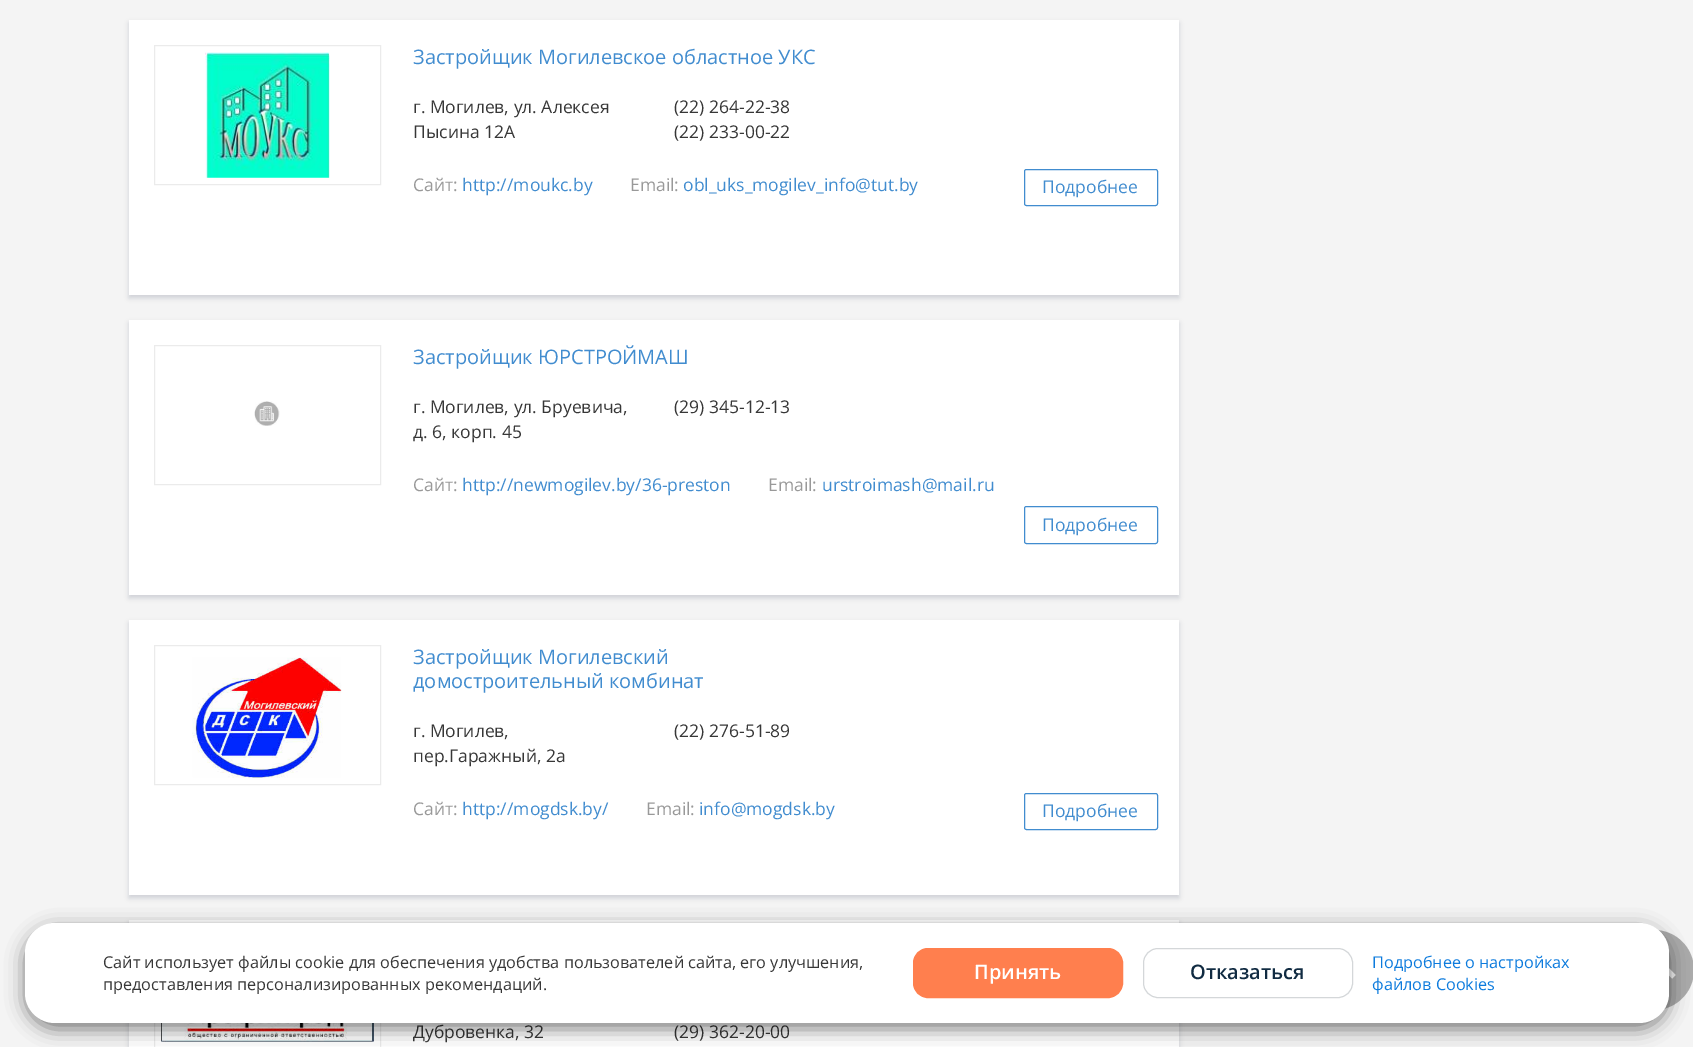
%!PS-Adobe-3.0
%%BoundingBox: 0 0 1693 1047
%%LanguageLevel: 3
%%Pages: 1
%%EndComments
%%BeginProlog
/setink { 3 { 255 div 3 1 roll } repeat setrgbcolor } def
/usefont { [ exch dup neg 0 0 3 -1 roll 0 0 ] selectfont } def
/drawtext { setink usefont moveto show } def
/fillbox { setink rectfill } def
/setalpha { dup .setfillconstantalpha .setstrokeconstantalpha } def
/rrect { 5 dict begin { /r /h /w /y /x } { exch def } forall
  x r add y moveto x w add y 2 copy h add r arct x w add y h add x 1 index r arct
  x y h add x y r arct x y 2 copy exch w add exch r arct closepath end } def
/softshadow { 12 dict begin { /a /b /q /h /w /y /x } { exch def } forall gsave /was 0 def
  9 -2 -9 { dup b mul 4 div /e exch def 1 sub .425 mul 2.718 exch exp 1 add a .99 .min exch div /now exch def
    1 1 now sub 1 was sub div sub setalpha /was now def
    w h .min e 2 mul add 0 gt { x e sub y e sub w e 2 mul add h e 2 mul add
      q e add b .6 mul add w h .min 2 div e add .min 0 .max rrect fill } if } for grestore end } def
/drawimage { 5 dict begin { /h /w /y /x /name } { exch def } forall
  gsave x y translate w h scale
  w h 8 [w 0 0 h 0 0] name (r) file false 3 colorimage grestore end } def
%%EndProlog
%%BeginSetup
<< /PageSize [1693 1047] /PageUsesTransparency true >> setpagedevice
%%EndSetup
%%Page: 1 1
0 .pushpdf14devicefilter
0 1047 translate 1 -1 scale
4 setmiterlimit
0 0 1693 1047 244 244 244 fillbox
0 17 51 setink
129 23 1050 275 0 2.5 0.15 softshadow
129 20 1050 275 255 255 255 fillbox
235 235 235 setink
154.5 45.5 226 139 rectstroke
(assets/img1.rgb) 205 52 125 126 drawimage
(Застройщик Могилевское областное УКС) 413 64 /OpenSans-Regular 20 65 140 207 drawtext
(г. Могилев, ул. Алексея) 413 113 /OpenSans-Regular 17.5 55 55 55 drawtext
(Пысина 12А) 413 138 /OpenSans-Regular 17.5 55 55 55 drawtext
(\(22\) 264-22-38) 674 113 /OpenSans-Regular 17.5 55 55 55 drawtext
(\(22\) 233-00-22) 674 138 /OpenSans-Regular 17.5 55 55 55 drawtext
(Сайт:) 413 191 /OpenSans-Regular 17.5 153 153 153 drawtext
(http://moukc.by) 462 191 /OpenSans-Regular 17.5 65 140 207 drawtext
(Email:) 630 191 /OpenSans-Regular 17.5 153 153 153 drawtext
(obl_uks_mogilev_info@tut.by) 683 191 /OpenSans-Regular 17.5 65 140 207 drawtext
1024.5 169.5 133 36 2 rrect stroke
(Подробнее) 1042 193 /OpenSans-Regular 17.5 65 140 207 drawtext
0 17 51 setink
129 323 1050 275 0 2.5 0.15 softshadow
129 320 1050 275 255 255 255 fillbox
235 235 235 setink
154.5 345.5 226 139 rectstroke
(assets/img2.rgb) 254 401 26 25 drawimage
(Застройщик ЮРСТРОЙМАШ) 413 364 /OpenSans-Regular 20 65 140 207 drawtext
(г. Могилев, ул. Бруевича,) 413 413 /OpenSans-Regular 17.5 55 55 55 drawtext
(д. 6, корп. 45) 413 438 /OpenSans-Regular 17.5 55 55 55 drawtext
(\(29\) 345-12-13) 674 413 /OpenSans-Regular 17.5 55 55 55 drawtext
(Сайт:) 413 491 /OpenSans-Regular 17.5 153 153 153 drawtext
(http://newmogilev.by/36-preston) 462 491 /OpenSans-Regular 17.5 65 140 207 drawtext
(Email:) 768 491 /OpenSans-Regular 17.5 153 153 153 drawtext
(urstroimash@mail.ru) 822 491 /OpenSans-Regular 17.5 65 140 207 drawtext
1024.5 506.5 133 37 2 rrect stroke
(Подробнее) 1042 531 /OpenSans-Regular 17.5 65 140 207 drawtext
0 17 51 setink
129 623 1050 275 0 2.5 0.15 softshadow
129 620 1050 275 255 255 255 fillbox
235 235 235 setink
154.5 645.5 226 139 rectstroke
(assets/img3.rgb) 192 657 150 121 drawimage
(Застройщик Могилевский) 413 664 /OpenSans-Regular 20 65 140 207 drawtext
(домостроительный комбинат) 413 688 /OpenSans-Regular 20 65 140 207 drawtext
(г. Могилев,) 413 737 /OpenSans-Regular 17.5 55 55 55 drawtext
(пер.Гаражный, 2а) 413 762 /OpenSans-Regular 17.5 55 55 55 drawtext
(\(22\) 276-51-89) 674 737 /OpenSans-Regular 17.5 55 55 55 drawtext
(Сайт:) 413 815 /OpenSans-Regular 17.5 153 153 153 drawtext
(http://mogdsk.by/) 462 815 /OpenSans-Regular 17.5 65 140 207 drawtext
(Email:) 646 815 /OpenSans-Regular 17.5 153 153 153 drawtext
(info@mogdsk.by) 699 815 /OpenSans-Regular 17.5 65 140 207 drawtext
1024.5 793.5 133 36 2 rrect stroke
(Подробнее) 1042 817 /OpenSans-Regular 17.5 65 140 207 drawtext
0 17 51 setink
129 923 1050 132 0 2.5 0.15 softshadow
129 920 1050 127 255 255 255 fillbox
235 235 235 setink
154.5 945.5 226 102 rectstroke
(assets/img4.rgb) 161 1023 213 19 drawimage
(Дубровенка, 32) 413 1038 /OpenSans-Regular 17.5 55 55 55 drawtext
(\(29\) 362-20-00) 674 1038 /OpenSans-Regular 17.5 55 55 55 drawtext
171 171 171 setink
1654 930 moveto 1632 930 1614 948 1614 970 curveto 1614 992 1632 1010 1654 1010 curveto 1676 1010 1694 992 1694 970 curveto 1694 948 1676 930 1654 930 curveto closepath 1672 979 moveto 1654 960 lineto 1635 979 lineto 1631 975 lineto 1654 953 lineto 1676 975 lineto closepath fill
0 0 0 setink
25 929 1644 100 30 9.5 0.5 softshadow
255 255 255 setink
25 923 1644 100 30 rrect fill
(Сайт использует файлы cookie для обеспечения удобства пользователей сайта, его улучшения,) 103 968 /OpenSans-Regular 16.25 55 55 55 drawtext
(предоставления персонализированных рекомендаций.) 103 990 /OpenSans-Regular 16.25 55 55 55 drawtext
255 127 78 setink
913.5 948.5 209 49 14.5 rrect gsave fill grestore
stroke
(Принять) 974 979 /OpenSans-SemiBold 20 255 255 255 drawtext
212 215 217 setink
1143.5 948.5 209 49 14.5 rrect stroke
(Отказаться) 1190 979 /OpenSans-SemiBold 20 17 43 66 drawtext
(Подробнее о настройках) 1372 968 /OpenSans-Regular 16.25 13 123 221 drawtext
(файлов Cookies) 1372 990 /OpenSans-Regular 16.25 13 123 221 drawtext
.poppdf14devicefilter showpage
%%EOF
